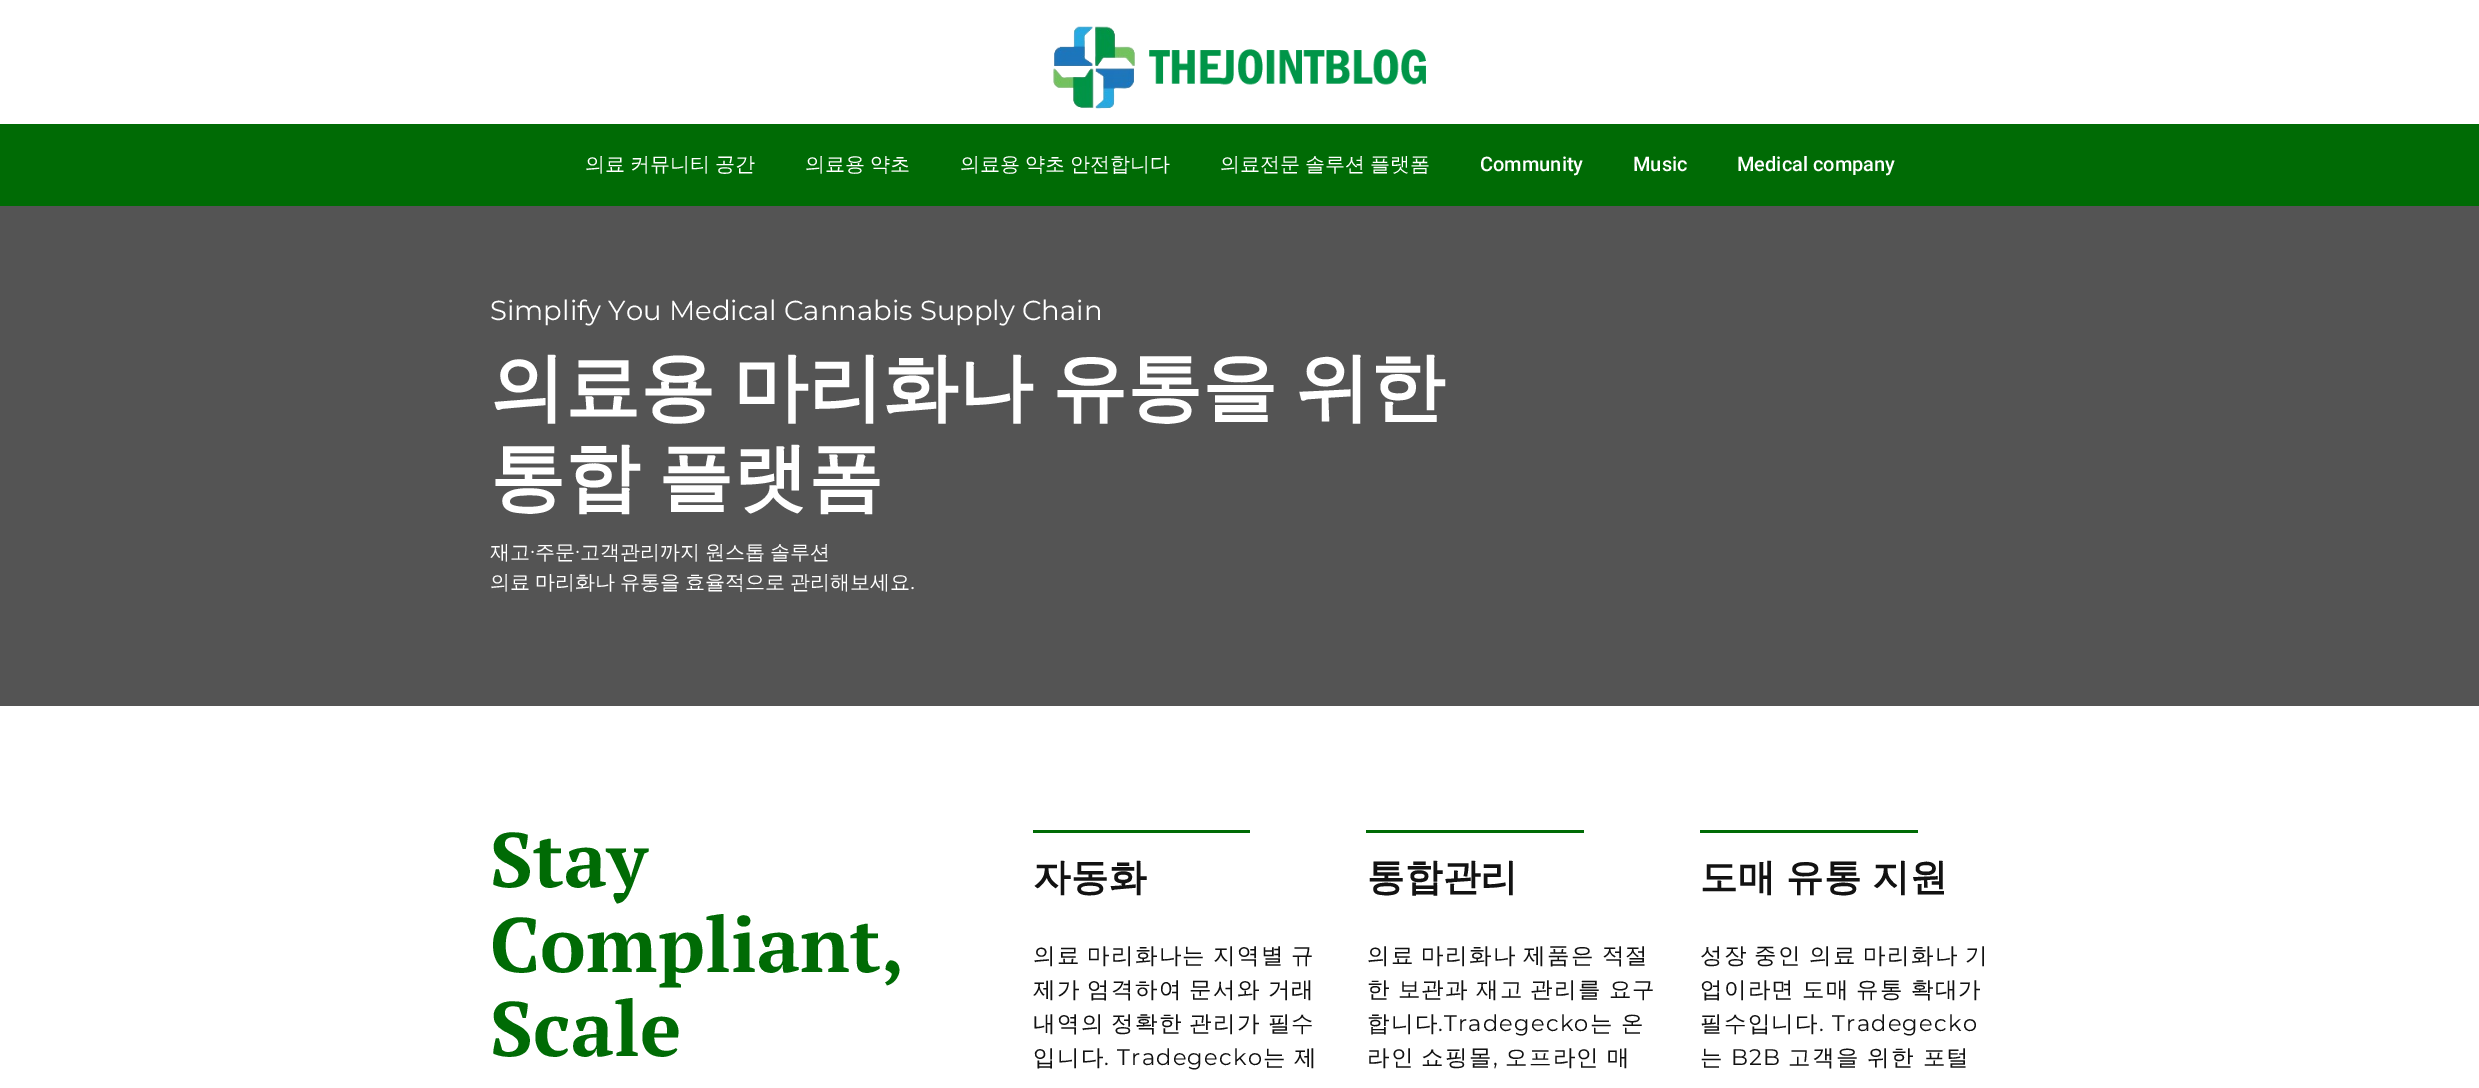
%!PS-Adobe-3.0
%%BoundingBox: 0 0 2479 1088
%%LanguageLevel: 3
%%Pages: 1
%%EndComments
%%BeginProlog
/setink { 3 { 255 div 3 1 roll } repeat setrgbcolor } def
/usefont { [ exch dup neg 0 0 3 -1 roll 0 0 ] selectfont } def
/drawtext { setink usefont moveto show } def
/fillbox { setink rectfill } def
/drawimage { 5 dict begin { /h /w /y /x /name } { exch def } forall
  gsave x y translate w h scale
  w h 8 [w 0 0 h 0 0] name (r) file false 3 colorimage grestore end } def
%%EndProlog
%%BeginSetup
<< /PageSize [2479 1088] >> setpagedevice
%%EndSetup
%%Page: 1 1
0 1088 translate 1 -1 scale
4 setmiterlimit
0 0 2479 1088 255 255 255 fillbox
(assets/img1.rgb) 1053 26 373 83 drawimage
0 124 2479 82 0 107 5 fillbox
/WenQuanYiZenHei-Medium 20 usefont
255 255 255 setink
585 171 moveto -1 0 32 (의료 커뮤니티 공간) widthshow
805 171 moveto -1 0 32 (의료용 약초) widthshow
960 171 moveto -1 0 32 (의료용 약초 안전합니다) widthshow
1220 171 moveto -1 0 32 (의료전문 솔루션 플랫폼) widthshow
(Community) 1480 171 /Roboto-Medium 20 255 255 255 drawtext
(Music) 1633 171 /Roboto-Medium 20 255 255 255 drawtext
(Medical company) 1737 171 /Roboto-Medium 20 255 255 255 drawtext
0 206 2479 500 84 84 84 fillbox
(Simplify You Medical Cannabis Supply Chain) 490 320 /Montserrat-Regular 27.5 255 255 255 drawtext
/WenQuanYiZenHei-Bold 75 usefont
490 413 moveto -4 0 32 (의료용 마리화나 유통을 위한) widthshow
490 503 moveto -4 0 32 (통합 플랫폼) widthshow
(재고) 490 559 /WenQuanYiZenHei-Medium 20 255 255 255 drawtext
(·) 530 559 /Roboto-Regular 20 255 255 255 drawtext
(주문) 535 559 /WenQuanYiZenHei-Medium 20 255 255 255 drawtext
(·) 575 559 /Roboto-Regular 20 255 255 255 drawtext
/WenQuanYiZenHei-Medium 20 usefont
580 559 moveto -1 0 32 (고객관리까지 원스톱 솔루션) widthshow
490 589 moveto -1 0 32 (의료 마리화나 유통을 효율적으로 관리해보세요) widthshow
(.) 910 589 /Roboto-Regular 20 255 255 255 drawtext
/PTSerif-Bold 77 usefont
0 107 5 setink
490 887 moveto 0.25 0 (Stay) ashow
490 972 moveto 0.25 0 (Compliant,) ashow
490 1056 moveto 0.25 0 (Scale) ashow
1033 830 217 3 0 107 5 fillbox
/WenQuanYiZenHei-Bold 37.5 usefont
18 18 18 setink
1033 890 moveto 0.25 0 (자동화) ashow
/WenQuanYiZenHei-Medium 22.5 usefont
1033 963 moveto -1 0 32 1.25 0 (의료 마리화나는 지역별 규) awidthshow
1033 997 moveto -1 0 32 1.25 0 (제가 엄격하여 문서와 거래) awidthshow
1033 1031 moveto -1 0 32 1.25 0 (내역의 정확한 관리가 필수) awidthshow
1033 1065 moveto 1.25 0 (입니다) ashow
/Montserrat-Regular 22.5 usefont
1104 1065 moveto 1.25 0 (. Tradegecko) ashow
/WenQuanYiZenHei-Medium 22.5 usefont
1263 1065 moveto 1.25 0 (는) ashow
1294 1065 moveto 1.25 0 (제) ashow
1366 830 218 3 0 107 5 fillbox
/WenQuanYiZenHei-Bold 37.5 usefont
18 18 18 setink
1367 890 moveto 0.25 0 (통합관리) ashow
/WenQuanYiZenHei-Medium 22.5 usefont
1367 963 moveto -1 0 32 1.25 0 (의료 마리화나 제품은 적절) awidthshow
1367 997 moveto -1 0 32 1.25 0 (한 보관과 재고 관리를 요구) awidthshow
1367 1031 moveto 1.25 0 (합니다) ashow
/Montserrat-Regular 22.5 usefont
1438 1031 moveto 1.25 0 (.Tradegecko) ashow
/WenQuanYiZenHei-Medium 22.5 usefont
1590 1031 moveto -1 0 32 1.25 0 (는 온) awidthshow
1367 1065 moveto -1 0 32 1.25 0 (라인 쇼핑몰) awidthshow
/Montserrat-Regular 22.5 usefont
1493 1065 moveto 1.25 0 (,) ashow
/WenQuanYiZenHei-Medium 22.5 usefont
1505 1065 moveto -1 0 32 1.25 0 (오프라인 매) awidthshow
1700 830 218 3 0 107 5 fillbox
/WenQuanYiZenHei-Bold 37.5 usefont
18 18 18 setink
1700 890 moveto -1 0 32 0.25 0 (도매 유통 지원) awidthshow
/WenQuanYiZenHei-Medium 22.5 usefont
1700 963 moveto -1 0 32 1.25 0 (성장 중인 의료 마리화나 기) awidthshow
1700 997 moveto -1 0 32 1.25 0 (업이라면 도매 유통 확대가) awidthshow
1700 1031 moveto 1.25 0 (필수입니다) ashow
/Montserrat-Regular 22.5 usefont
1819 1031 moveto 1.25 0 (. Tradegecko) ashow
/WenQuanYiZenHei-Medium 22.5 usefont
1700 1065 moveto 1.25 0 (는) ashow
/Montserrat-Regular 22.5 usefont
1731 1065 moveto 1.25 0 (B2B) ashow
/WenQuanYiZenHei-Medium 22.5 usefont
1788 1065 moveto 1.25 0 (고객을 위한 포털) ashow
showpage
%%EOF
